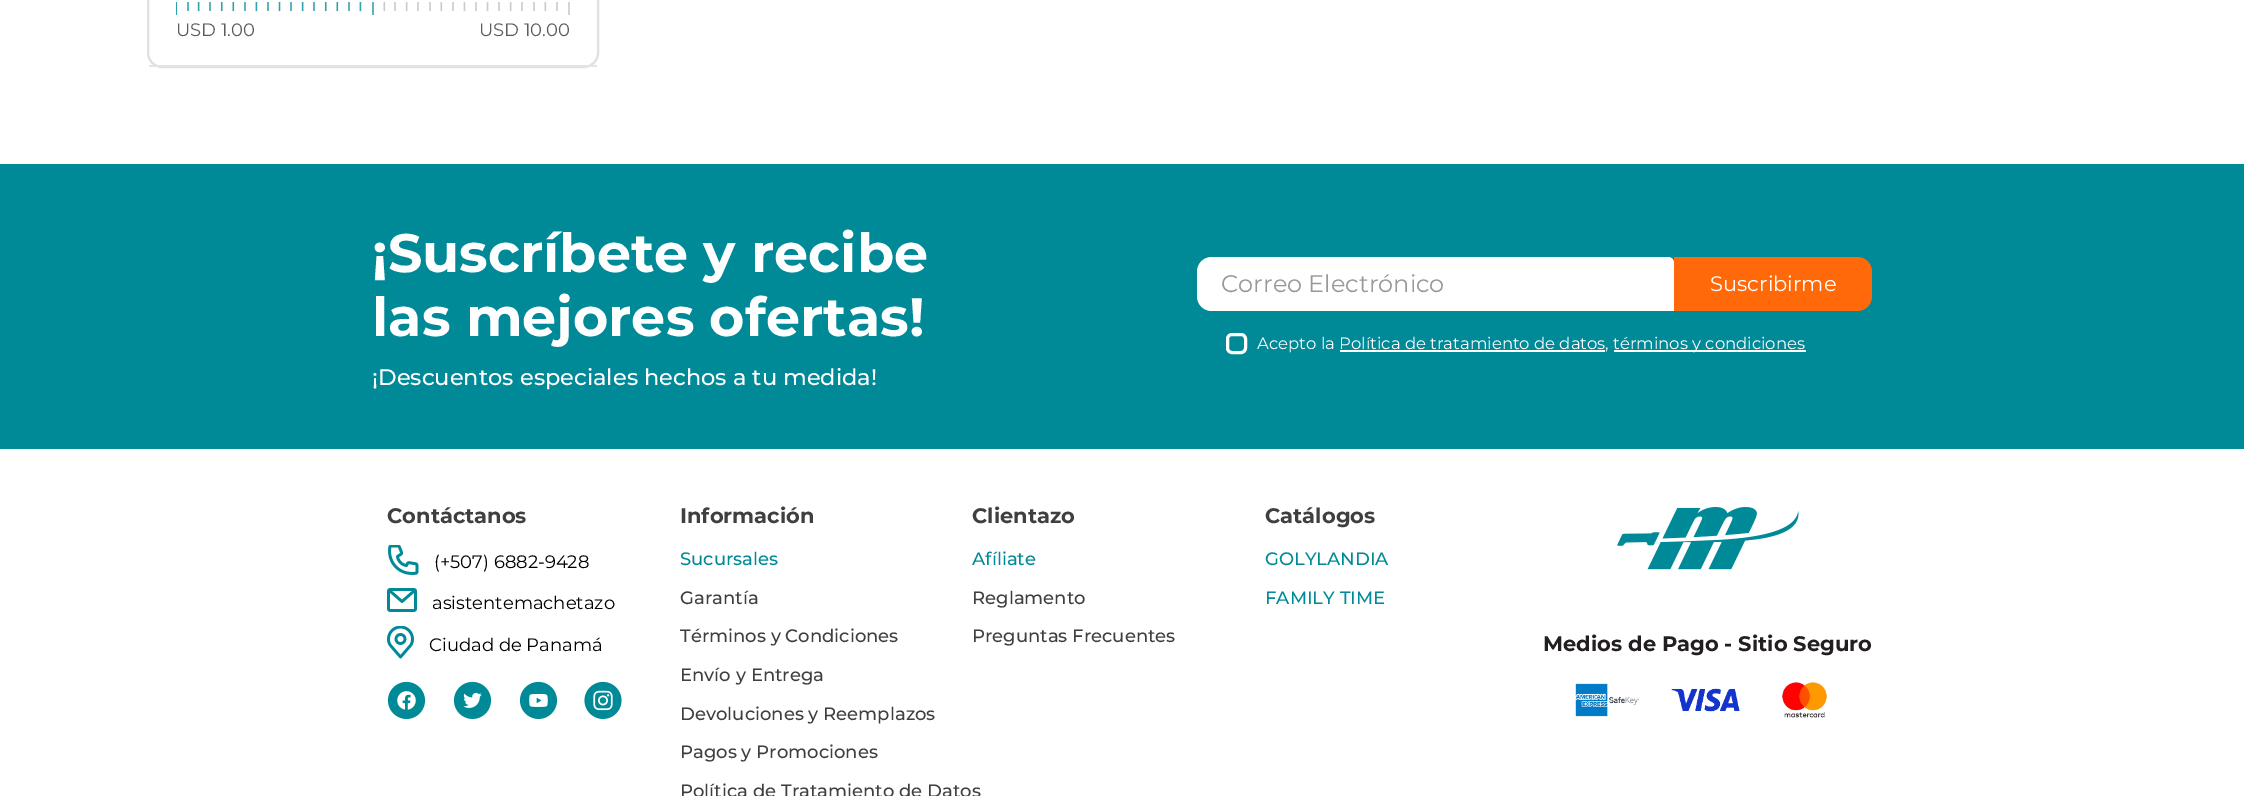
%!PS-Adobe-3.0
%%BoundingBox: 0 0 2244 796
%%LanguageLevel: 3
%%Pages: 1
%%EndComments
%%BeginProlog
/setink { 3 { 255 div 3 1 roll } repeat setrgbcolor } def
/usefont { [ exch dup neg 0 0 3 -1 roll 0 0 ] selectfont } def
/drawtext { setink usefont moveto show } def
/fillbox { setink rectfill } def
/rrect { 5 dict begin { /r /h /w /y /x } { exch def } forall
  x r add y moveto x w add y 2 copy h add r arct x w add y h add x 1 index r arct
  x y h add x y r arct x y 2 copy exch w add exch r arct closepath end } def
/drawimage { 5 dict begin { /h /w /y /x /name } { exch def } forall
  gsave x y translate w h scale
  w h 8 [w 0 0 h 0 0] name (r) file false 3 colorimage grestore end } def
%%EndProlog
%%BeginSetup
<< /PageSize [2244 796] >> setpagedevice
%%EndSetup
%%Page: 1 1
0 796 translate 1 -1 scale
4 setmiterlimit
0 0 2244 796 255 255 255 fillbox
224 224 224 setink
2 setlinewidth
148 -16 450 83 14 rrect stroke
149 65 448 2 227 228 230 fillbox
(assets/img1.rgb) 176 2 394 13 drawimage
(USD 1.00) 176 36 /Montserrat-Regular 18 92 92 92 drawtext
(USD 10.00) 479 36 /Montserrat-Regular 18 92 92 92 drawtext
0 164 2244 285 0 137 150 fillbox
(¡Suscríbete y recibe) 372 272 /Montserrat-Bold 54 255 255 255 drawtext
(las mejores ofertas!) 372 336 /Montserrat-Bold 54 255 255 255 drawtext
(¡Descuentos especiales hechos a tu medida!) 372 385 /Montserrat-Medium 22.5 255 255 255 drawtext
gsave
1197 257 477 60 6 rrect clip newpath
1212 257 moveto 1668 257 lineto 1671.5 257 1674 259.5 1674 263 curveto 1674 311 lineto 1212 311 lineto 1203.5 311 1197 304.5 1197 296 curveto 1197 272 lineto 1197 263.5 1203.5 257 1212 257 curveto closepath fill
grestore
(Correo Electrónico) 1221 292 /Montserrat-Regular 24 151 152 153 drawtext
255 105 10 setink
1674 257 moveto 1857 257 lineto 1865.5 257 1872 263.5 1872 272 curveto 1872 296 lineto 1872 304.5 1865.5 311 1857 311 curveto 1674 311 lineto closepath fill
(Suscribirme) 1710 291 /Montserrat-Regular 21 255 255 255 drawtext
3 setlinewidth
1227.5 334.5 18 18 4.5 rrect stroke
(Acepto la Política de tratamiento de datos,) 1257 349 /Montserrat-Regular 16.5 255 255 255 drawtext
1614 350 192 2 255 255 255 fillbox
(términos y condiciones) 1613 349 /Montserrat-Regular 16.5 255 255 255 drawtext
1340 350 265 2 255 255 255 fillbox
(Contáctanos) 387 523 /Montserrat-Bold 21 63 63 64 drawtext
(assets/img2.rgb) 388 545 31 30 drawimage
(\(+507\) 6882-9428) 434 568 /Montserrat-Regular 18 0 0 0 drawtext
(assets/img3.rgb) 387 588 30 24 drawimage
(asistentemachetazo) 432 609 /Montserrat-Regular 18 0 0 0 drawtext
(assets/img4.rgb) 387 626 27 33 drawimage
(Ciudad de Panamá) 429 651 /Montserrat-Regular 18 0 0 0 drawtext
(assets/img5.rgb) 387 681 39 38 drawimage
(assets/img6.rgb) 453 681 39 38 drawimage
(assets/img7.rgb) 519 681 39 38 drawimage
(assets/img8.rgb) 584 681 38 38 drawimage
(Información) 680 523 /Montserrat-Bold 21 63 63 64 drawtext
(Sucursales) 680 565 /Montserrat-Medium 18 0 137 150 drawtext
(Garantía) 680 604 /Montserrat-Medium 18 63 63 64 drawtext
(Términos y Condiciones) 680 642 /Montserrat-Medium 18 63 63 64 drawtext
(Envío y Entrega) 680 681 /Montserrat-Medium 18 63 63 64 drawtext
(Devoluciones y Reemplazos) 680 720 /Montserrat-Medium 18 63 63 64 drawtext
(Pagos y Promociones) 680 758 /Montserrat-Medium 18 63 63 64 drawtext
(Política de Tratamiento de Datos) 680 797 /Montserrat-Medium 18 63 63 64 drawtext
(Clientazo) 972 523 /Montserrat-Bold 21 63 63 64 drawtext
(Afíliate) 972 565 /Montserrat-Medium 18 0 137 150 drawtext
(Reglamento) 972 604 /Montserrat-Medium 18 63 63 64 drawtext
(Preguntas Frecuentes) 972 642 /Montserrat-Medium 18 63 63 64 drawtext
(Catálogos) 1265 523 /Montserrat-Bold 21 63 63 64 drawtext
(GOLYLANDIA) 1265 565 /Montserrat-Medium 18 0 137 150 drawtext
(FAMILY TIME) 1265 604 /Montserrat-Medium 18 0 137 150 drawtext
(assets/img9.rgb) 1617 507 182 63 drawimage
(Medios de Pago - Sitio Seguro) 1543 651 /Montserrat-Bold 21 35 31 32 drawtext
(assets/img10.rgb) 1575 683 64 34 drawimage
(assets/img11.rgb) 1671 688 69 24 drawimage
(assets/img12.rgb) 1782 682 45 36 drawimage
showpage
%%EOF
